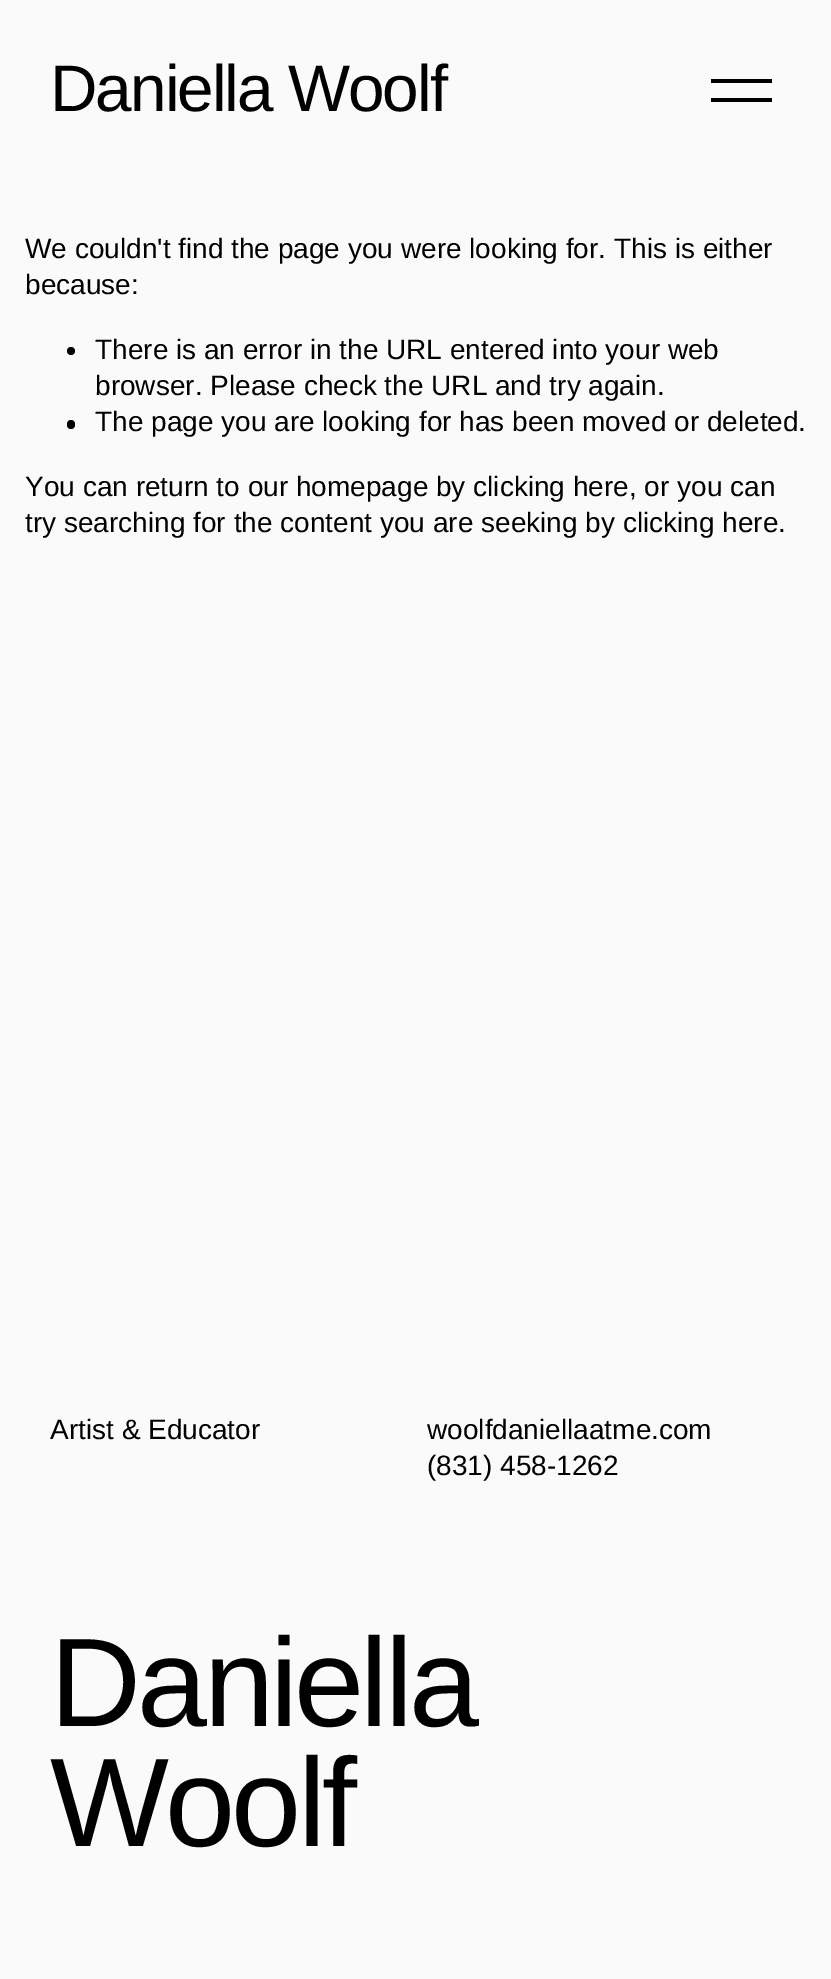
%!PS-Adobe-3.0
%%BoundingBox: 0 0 831 1979
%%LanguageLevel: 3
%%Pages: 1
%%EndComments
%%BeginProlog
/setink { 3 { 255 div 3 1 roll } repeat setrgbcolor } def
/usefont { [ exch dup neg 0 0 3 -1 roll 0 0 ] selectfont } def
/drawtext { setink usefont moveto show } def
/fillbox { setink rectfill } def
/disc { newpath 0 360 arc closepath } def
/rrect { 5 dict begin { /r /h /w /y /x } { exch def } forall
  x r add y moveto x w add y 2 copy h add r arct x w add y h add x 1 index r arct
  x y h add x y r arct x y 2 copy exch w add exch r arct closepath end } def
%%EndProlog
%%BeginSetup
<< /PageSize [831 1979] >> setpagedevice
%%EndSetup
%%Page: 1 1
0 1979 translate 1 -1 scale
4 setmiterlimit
0 0 831 1979 250 250 250 fillbox
/LiberationSans-Regular 65.75 usefont
0 0 0 setink
50 111 moveto -2 0 (Daniella Woolf) ashow
711 79 61 4 0 0 0 fillbox
711 98 61 4 0 0 0 fillbox
(We couldn't find the page you were looking for. This is either) 25 258 /LiberationSans-Regular 28 0 0 0 drawtext
(because:) 25 294 /LiberationSans-Regular 28 0 0 0 drawtext
71 351 4 disc fill
(There is an error in the URL entered into your web) 95 359 /LiberationSans-Regular 28 0 0 0 drawtext
(browser. Please check the URL and try again.) 95 395 /LiberationSans-Regular 28 0 0 0 drawtext
67 420 8 9 4 rrect fill
(The page you are looking for has been moved or deleted.) 95 431 /LiberationSans-Regular 28 0 0 0 drawtext
(You can return to our homepage by clicking here, or you can) 25 496 /LiberationSans-Regular 28 0 0 0 drawtext
(try searching for the content you are seeking by clicking here.) 25 532 /LiberationSans-Regular 28 0 0 0 drawtext
(Artist & Educator) 50 1439 /LiberationSans-Regular 28 0 0 0 drawtext
(woolfdaniellaatme.com) 427 1439 /LiberationSans-Regular 28 0 0 0 drawtext
(\(831\) 458-1262) 427 1475 /LiberationSans-Regular 28 0 0 0 drawtext
/LiberationSans-Regular 126 usefont
50 1726 moveto -3.75 0 (Daniella) ashow
50 1846 moveto -3.75 0 (Woolf) ashow
showpage
%%EOF
